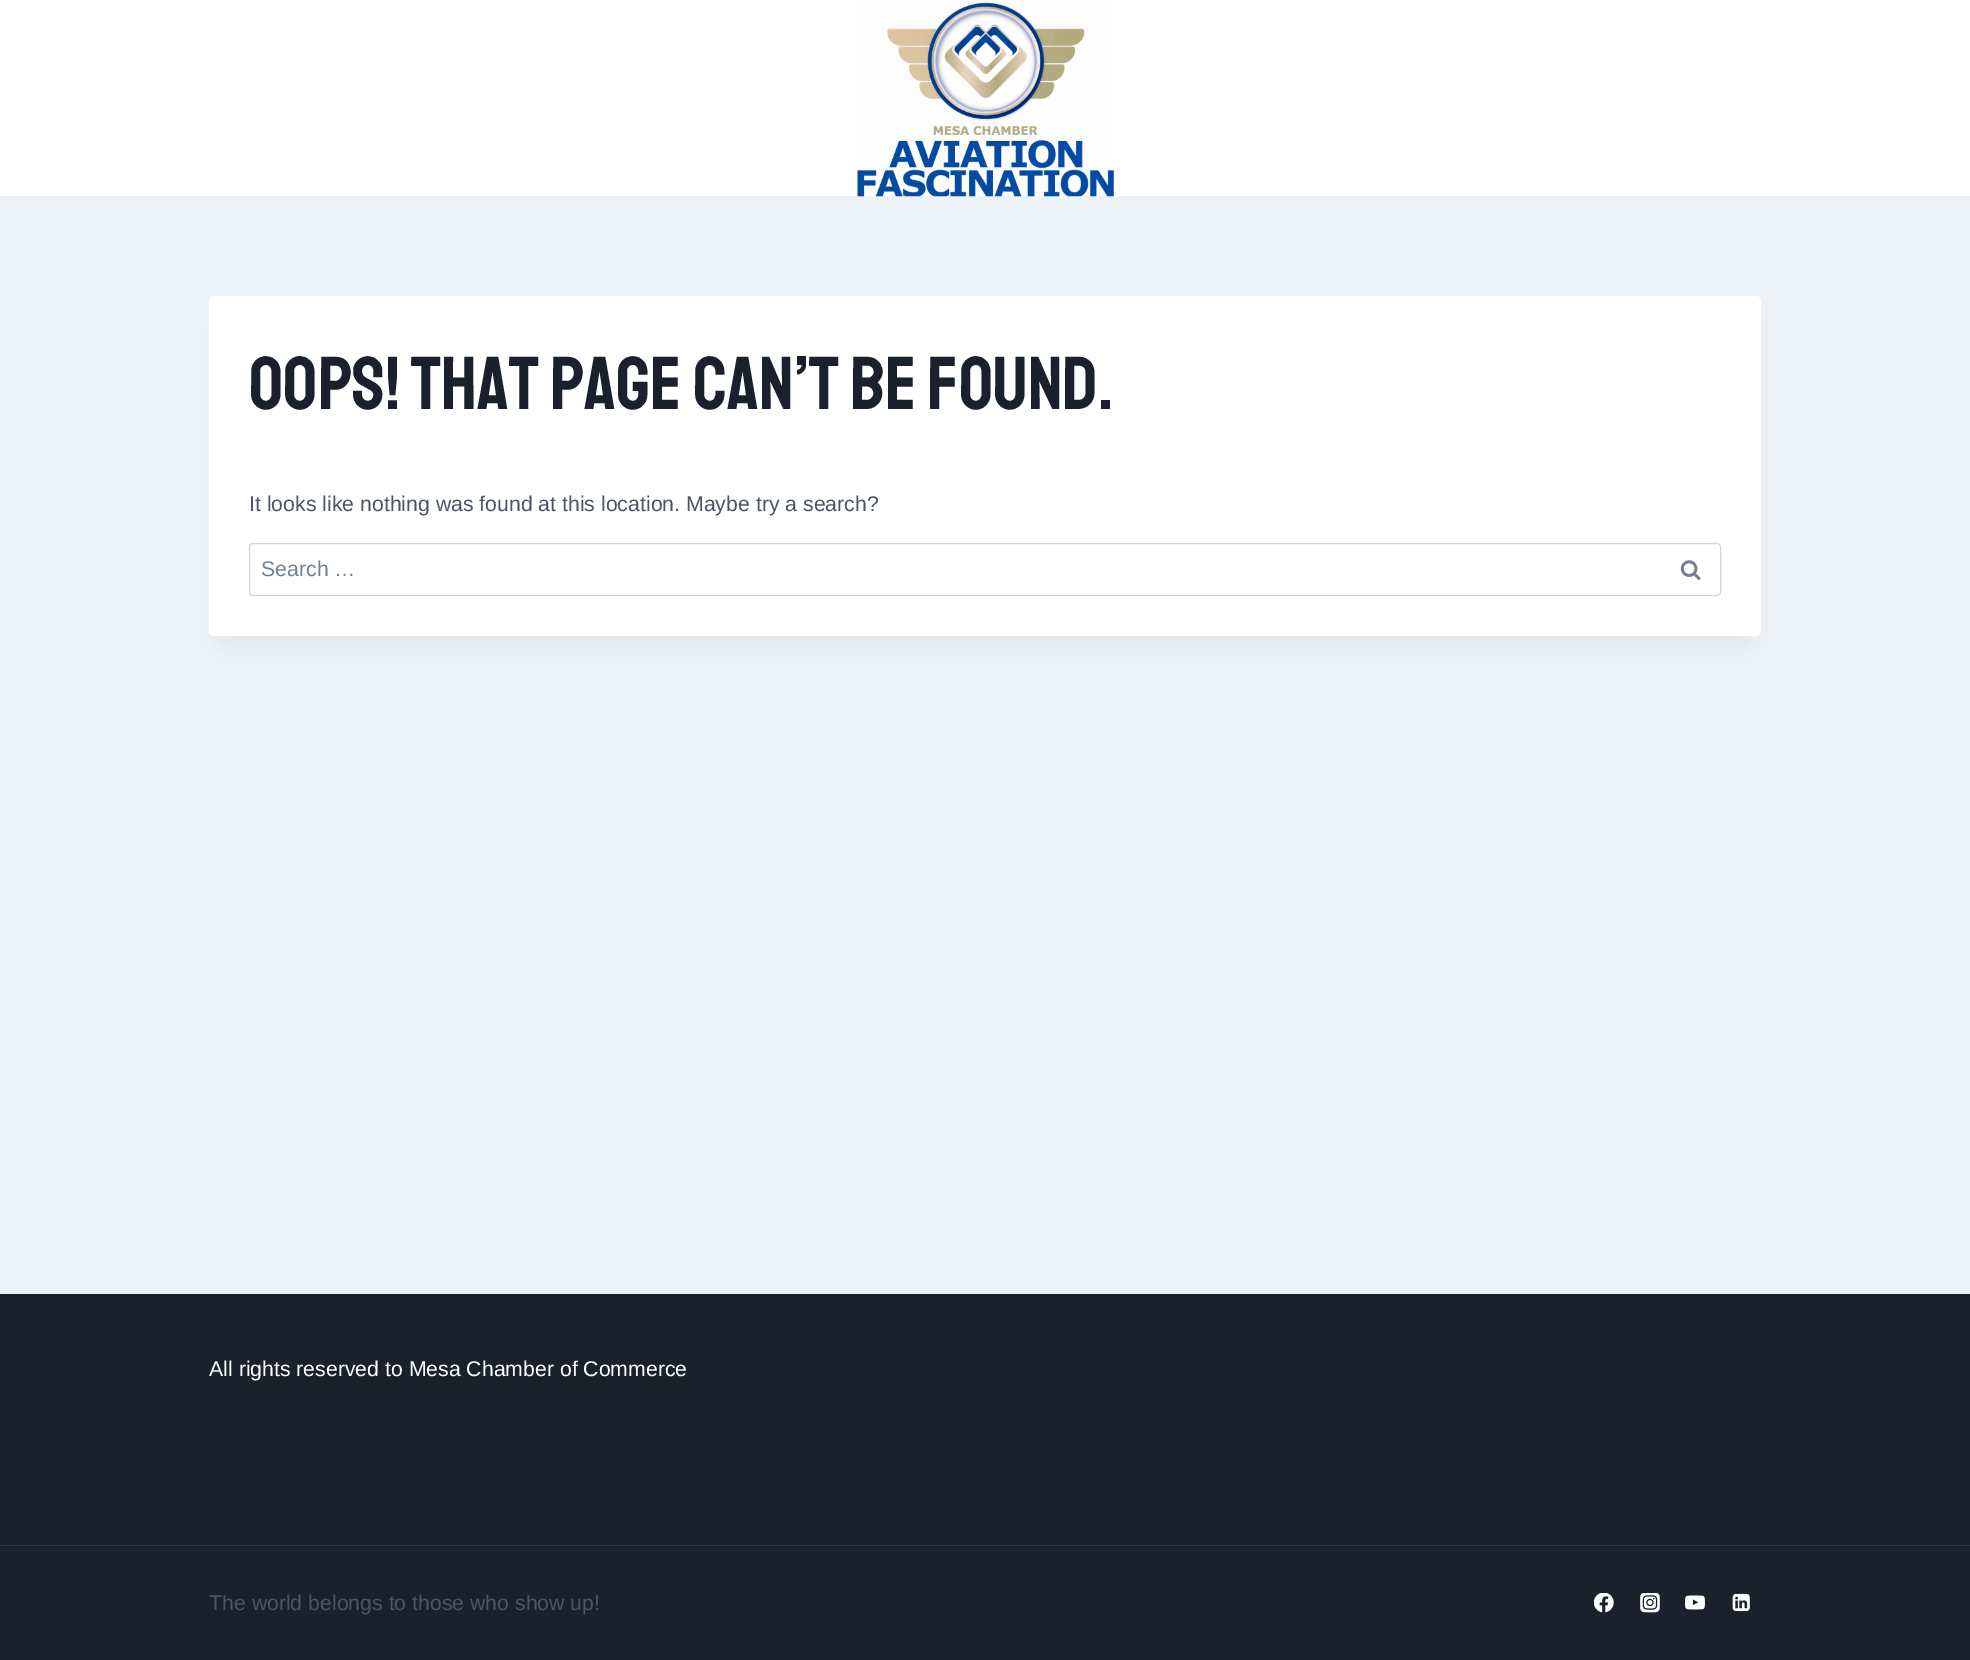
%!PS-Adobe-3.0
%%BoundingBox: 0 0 1970 1660
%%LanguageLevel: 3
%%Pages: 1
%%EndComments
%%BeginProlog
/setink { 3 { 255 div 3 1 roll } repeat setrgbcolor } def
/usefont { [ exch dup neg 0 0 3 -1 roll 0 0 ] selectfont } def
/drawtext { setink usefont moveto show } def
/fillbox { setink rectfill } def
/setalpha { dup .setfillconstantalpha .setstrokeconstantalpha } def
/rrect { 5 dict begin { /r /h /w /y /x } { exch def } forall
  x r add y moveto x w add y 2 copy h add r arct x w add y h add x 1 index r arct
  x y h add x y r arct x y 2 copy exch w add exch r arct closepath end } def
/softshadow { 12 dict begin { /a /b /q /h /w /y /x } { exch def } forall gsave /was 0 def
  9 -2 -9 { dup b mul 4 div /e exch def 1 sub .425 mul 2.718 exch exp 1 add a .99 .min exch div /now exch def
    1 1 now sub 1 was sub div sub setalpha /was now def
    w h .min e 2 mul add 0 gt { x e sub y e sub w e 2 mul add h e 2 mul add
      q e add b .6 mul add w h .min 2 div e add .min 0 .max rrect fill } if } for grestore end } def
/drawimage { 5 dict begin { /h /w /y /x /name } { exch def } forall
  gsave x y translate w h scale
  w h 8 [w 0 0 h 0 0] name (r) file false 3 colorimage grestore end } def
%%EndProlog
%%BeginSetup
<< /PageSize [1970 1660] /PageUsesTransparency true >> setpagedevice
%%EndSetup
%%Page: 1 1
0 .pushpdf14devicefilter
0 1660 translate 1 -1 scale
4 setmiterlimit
0 0 1970 1660 237 242 247 fillbox
0 0 1970 196 255 255 255 fillbox
(assets/img1.rgb) 857 2 257 195 drawimage
0 0 0 setink
221 328 1528 315 0 15.5 0.05 softshadow
255 255 255 setink
209 296 1552 340 5 rrect fill
(Oops! That Page Can’t Be Found.) 249 409 /Staatliches-Regular 75 26 32 44 drawtext
(It looks like nothing was found at this location. Maybe try a search?) 249 511 /LiberationSans-Regular 21.25 74 85 104 drawtext
203 213 224 setink
249.5 543.5 1471 52 3.5 rrect stroke
(Search …) 261 576 /LiberationSans-Regular 21.25 113 128 150 drawtext
(assets/img2.rgb) 1680 560 21 20 drawimage
0 1294 1970 366 26 32 44 fillbox
(All rights reserved to Mesa Chamber of Commerce) 209 1376 /LiberationSans-Regular 21.25 255 255 255 drawtext
0 1545 1970 1 45 55 72 fillbox
(The world belongs to those who show up!) 209 1610 /LiberationSans-Regular 21.25 74 85 104 drawtext
(assets/img3.rgb) 1594 1593 20 20 drawimage
(assets/img4.rgb) 1640 1593 20 20 drawimage
(assets/img5.rgb) 1685 1595 20 15 drawimage
(assets/img6.rgb) 1732 1593 18 19 drawimage
.poppdf14devicefilter showpage
%%EOF
